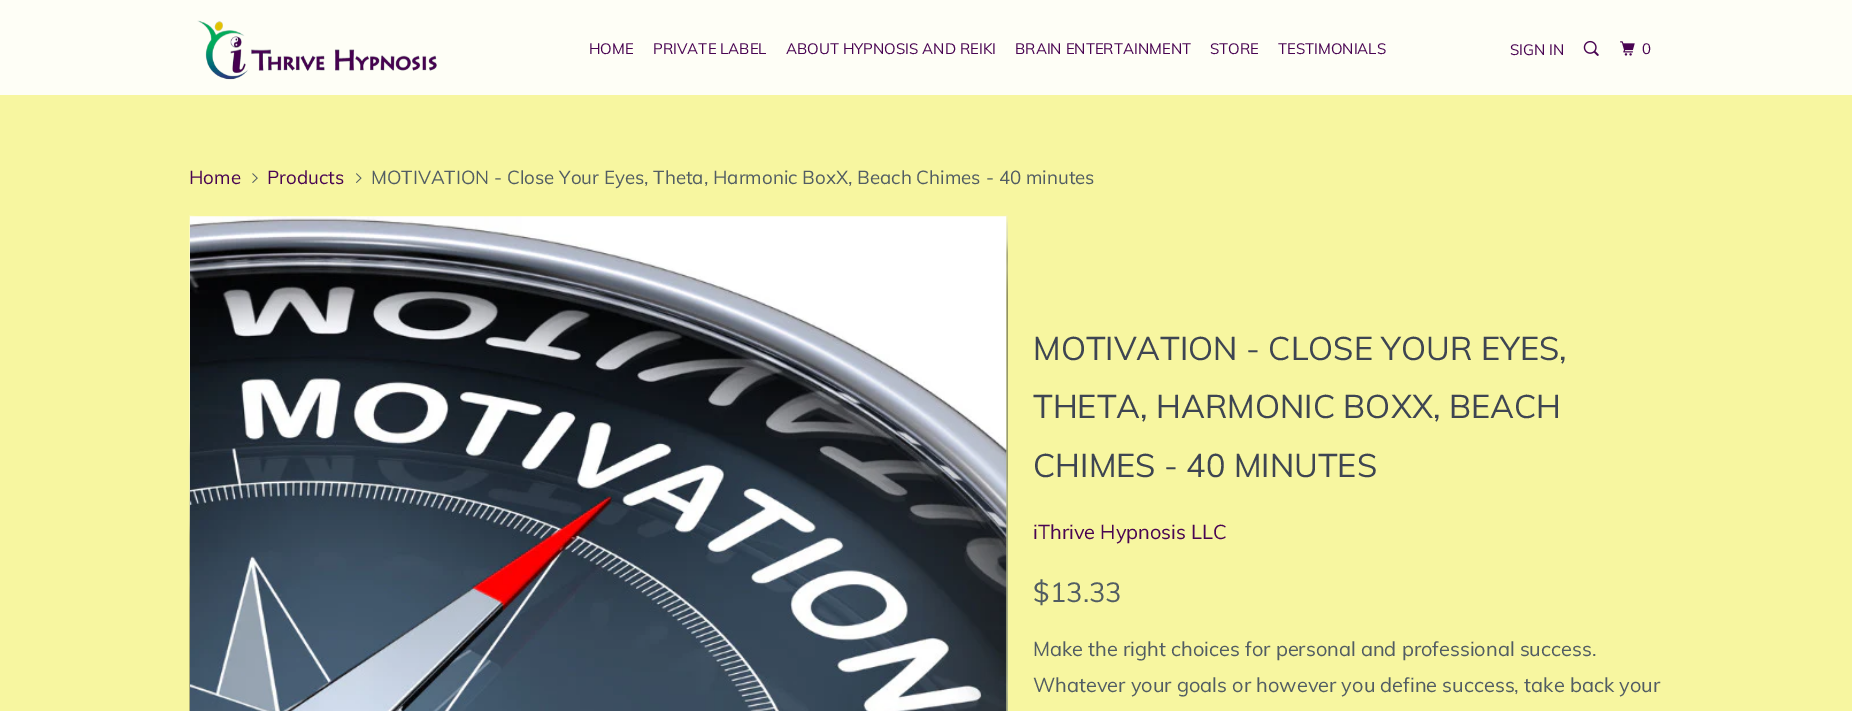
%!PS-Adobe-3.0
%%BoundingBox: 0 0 1852 711
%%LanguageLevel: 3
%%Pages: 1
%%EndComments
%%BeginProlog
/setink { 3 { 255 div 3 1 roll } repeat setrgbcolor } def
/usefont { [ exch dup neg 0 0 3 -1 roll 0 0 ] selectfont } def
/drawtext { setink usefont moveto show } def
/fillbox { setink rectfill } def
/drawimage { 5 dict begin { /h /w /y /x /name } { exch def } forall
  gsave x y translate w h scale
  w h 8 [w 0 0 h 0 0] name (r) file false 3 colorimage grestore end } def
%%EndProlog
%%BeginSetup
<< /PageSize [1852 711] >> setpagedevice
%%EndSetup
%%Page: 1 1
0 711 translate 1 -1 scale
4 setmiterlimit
0 0 1852 711 247 246 160 fillbox
0 0 1852 95 254 254 246 fillbox
(assets/img1.rgb) 197 20 240 60 drawimage
(HOME) 589 54 /Muli-Regular 15 73 4 82 drawtext
(PRIVATE LABEL) 653 54 /Muli-Regular 15 73 4 82 drawtext
(ABOUT HYPNOSIS AND REIKI) 786 54 /Muli-Regular 15 73 4 82 drawtext
(BRAIN ENTERTAINMENT) 1015 54 /Muli-Regular 15 73 4 82 drawtext
(STORE) 1210 54 /Muli-Regular 15 73 4 82 drawtext
(TESTIMONIALS) 1278 54 /Muli-Regular 15 73 4 82 drawtext
(SIGN IN) 1510 55 /Muli-Regular 15 73 4 82 drawtext
(assets/img2.rgb) 1583 40 16 16 drawimage
(assets/img3.rgb) 1620 41 15 15 drawimage
(0) 1642 54 /Muli-Regular 15 73 4 82 drawtext
(Home) 189 184 /Muli-Regular 18.75 73 4 82 drawtext
(assets/img4.rgb) 252 173 6 10 drawimage
(Products) 267 184 /Muli-Regular 18.75 73 4 82 drawtext
(assets/img5.rgb) 356 173 6 10 drawimage
(MOTIVATION - Close Your Eyes, Theta, Harmonic BoxX, Beach Chimes - 40 minutes) 371 184 /Muli-Regular 18.75 82 93 99 drawtext
(assets/img6.rgb) 189 215 9 496 drawimage
(assets/img7.rgb) 998 215 10 496 drawimage
(assets/img8.rgb) 190 216 817 495 drawimage
(MOTIVATION - CLOSE YOUR EYES,) 1033 360 /Muli-Regular 32.5 62 69 82 drawtext
(THETA, HARMONIC BOXX, BEACH) 1033 418 /Muli-Regular 32.5 62 69 82 drawtext
(CHIMES - 40 MINUTES) 1033 477 /Muli-Regular 32.5 62 69 82 drawtext
(iThrive Hypnosis LLC) 1033 539 /Muli-Regular 20 73 4 82 drawtext
($13.33) 1033 602 /Muli-Regular 27.5 82 93 99 drawtext
(Make the right choices for personal and professional success.) 1033 656 /Muli-Regular 20 82 93 99 drawtext
(Whatever your goals or however you define success, take back your) 1033 692 /Muli-Regular 20 82 93 99 drawtext
showpage
%%EOF
